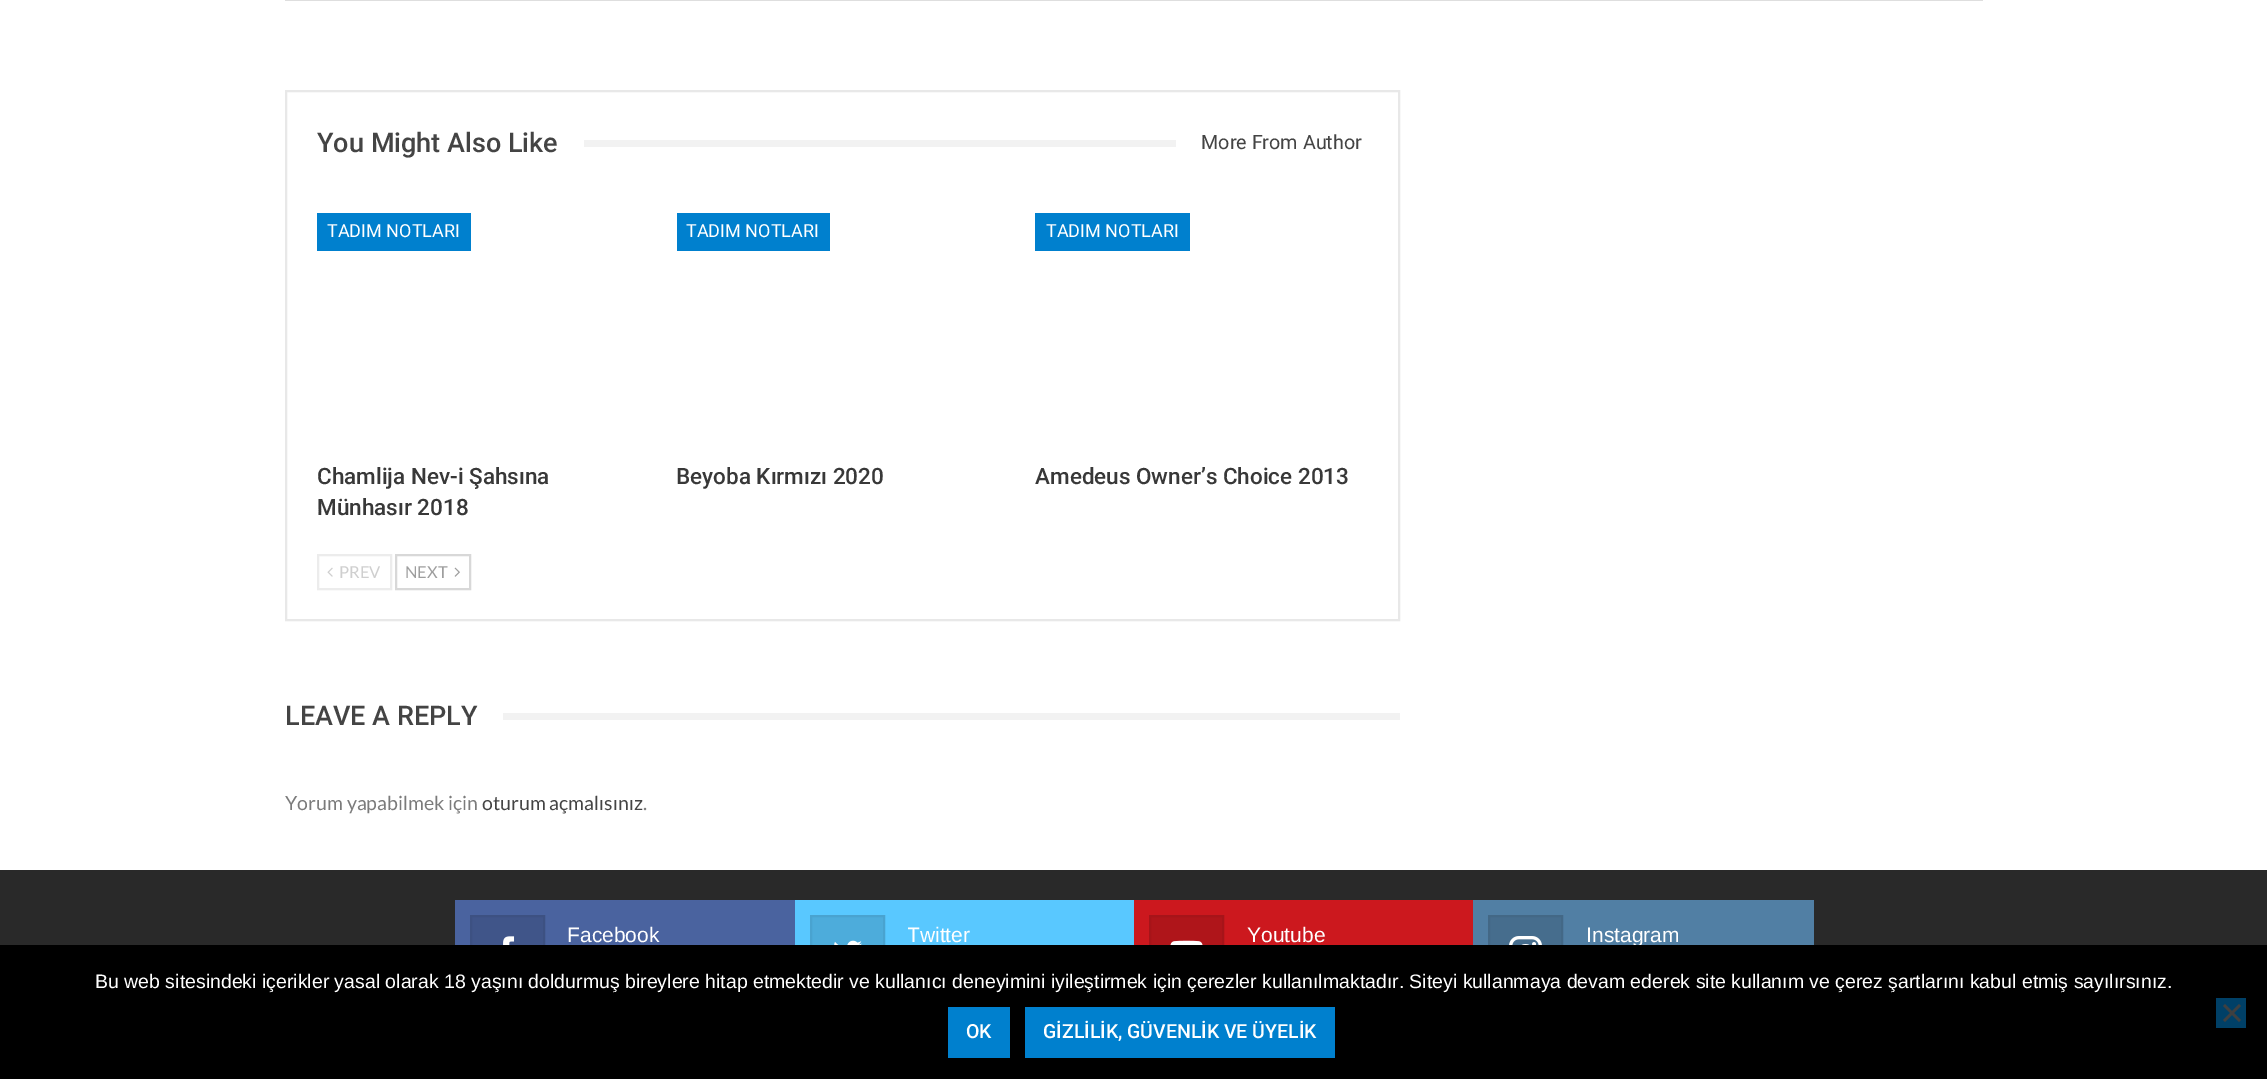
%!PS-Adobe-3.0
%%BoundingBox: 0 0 2267 1079
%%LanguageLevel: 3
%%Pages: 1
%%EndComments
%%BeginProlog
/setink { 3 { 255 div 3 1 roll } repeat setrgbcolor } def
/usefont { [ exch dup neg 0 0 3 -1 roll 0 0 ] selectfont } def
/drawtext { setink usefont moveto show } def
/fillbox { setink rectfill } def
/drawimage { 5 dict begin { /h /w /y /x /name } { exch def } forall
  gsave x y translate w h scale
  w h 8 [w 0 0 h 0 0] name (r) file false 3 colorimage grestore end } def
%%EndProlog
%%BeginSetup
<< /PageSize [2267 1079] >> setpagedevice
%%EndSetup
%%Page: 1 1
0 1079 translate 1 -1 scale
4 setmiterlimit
0 0 2267 1079 255 255 255 fillbox
285 0 1698 1 222 222 222 fillbox
232 232 232 setink
2 setlinewidth
286 91 1113 529 rectstroke
(You Might Also Like) 317 152 /Roboto-Medium 27 68 68 68 drawtext
584 140 592 7 242 242 242 fillbox
(More From Author) 1201 149 /Roboto-Regular 19.75 68 68 68 drawtext
317 213 154 38 0 128 206 fillbox
(TADIM NOTLARI) 327 237 /Roboto-Regular 18 255 255 255 drawtext
(Chamlija Nev-i Şahsına) 317 484 /Roboto-Medium 22.5 56 56 56 drawtext
(Münhasır 2018) 317 515 /Roboto-Medium 22.5 56 56 56 drawtext
677 213 153 38 0 128 206 fillbox
(TADIM NOTLARI) 686 237 /Roboto-Regular 18 255 255 255 drawtext
(Beyoba Kırmızı 2020) 676 484 /Roboto-Medium 22.5 56 56 56 drawtext
1035 213 155 38 0 128 206 fillbox
(TADIM NOTLARI) 1046 237 /Roboto-Regular 18 255 255 255 drawtext
(Amedeus Owner’s Choice 2013) 1035 484 /Roboto-Medium 22.5 56 56 56 drawtext
236 236 236 setink
318 555 73 34 rectstroke
(assets/img1.rgb) 327 567 6 10 drawimage
(PREV) 339 578 /Lato-Regular 16.5 207 207 207 drawtext
216 216 216 setink
396 555 74 34 rectstroke
(NEXT) 405 578 /Lato-Regular 16.5 158 158 158 drawtext
(assets/img2.rgb) 454 567 6 10 drawimage
(LEAVE A REPLY) 285 725 /Roboto-Medium 27 68 68 68 drawtext
503 713 897 7 242 242 242 fillbox
(Yorum yapabilmek için) 285 810 /Lato-Regular 19.5 123 123 123 drawtext
(oturum açmalısınız) 482 810 /Lato-Regular 19.5 68 68 68 drawtext
(.) 643 810 /Lato-Regular 19.5 123 123 123 drawtext
0 870 2267 75 41 41 41 fillbox
455 900 340 45 74 99 159 fillbox
472 917 71 28 64 85 137 fillbox
61 81 130 setink
471 916 73 73 rectstroke
(assets/img3.rgb) 503 936 12 9 drawimage
(Facebook) 567 942 /LiberationSans-Regular 21 255 255 255 drawtext
795 900 339 45 89 200 255 fillbox
812 917 71 28 77 172 219 fillbox
73 163 208 setink
811 916 73 73 rectstroke
(assets/img4.rgb) 834 940 28 5 drawimage
gsave
908 918 211 36 rectclip
(Twitter) 907 942 /LiberationSans-Regular 21 255 255 255 drawtext
grestore
1134 900 339 45 204 24 30 fillbox
1151 917 71 28 175 21 26 fillbox
166 20 25 setink
1150 916 73 73 rectstroke
(assets/img5.rgb) 1170 940 33 5 drawimage
(Youtube) 1247 942 /LiberationSans-Regular 21 255 255 255 drawtext
1473 900 341 45 81 127 164 fillbox
1490 917 71 28 70 109 141 fillbox
67 104 134 setink
1489 916 73 73 rectstroke
(assets/img6.rgb) 1509 936 33 9 drawimage
(Instagram) 1586 942 /LiberationSans-Regular 21 255 255 255 drawtext
0 945 2267 134 0 0 0 fillbox
(Bu web sitesindeki içerikler yasal olarak 18 yaşını doldurmuş bireylere hitap etmektedir ve kullanıcı deneyimini iyileştirmek için çerezler kullanılmaktadır. Siteyi kullanmaya devam ederek site kullanım ve çerez şartlarını kabul etmiş sayılırsınız.) 95 988 /LiberationSans-Regular 19.5 255 255 255 drawtext
2216 998 30 30 0 64 103 fillbox
64 64 64 setink
2239 1004 moveto 2241 1006 lineto 2225 1022 lineto 2223 1020 lineto closepath fill
2223 1006 moveto 2225 1004 lineto 2241 1020 lineto 2239 1022 lineto closepath fill
948 1007 62 51 0 128 206 fillbox
(OK) 966 1038 /Roboto-Medium 19.5 255 255 255 drawtext
1025 1007 310 51 0 128 206 fillbox
(GİZLİLİK, GÜVENLİK VE ÜYELİK) 1043 1038 /Roboto-Medium 19.5 255 255 255 drawtext
showpage
%%EOF
